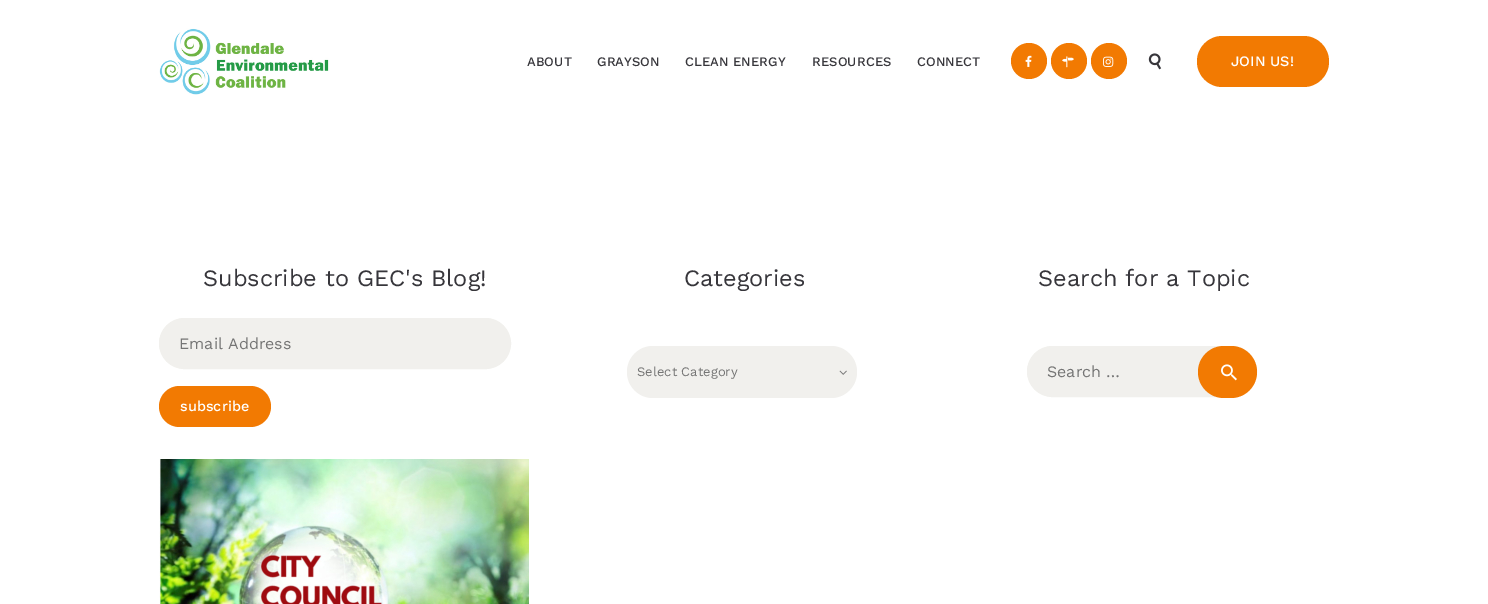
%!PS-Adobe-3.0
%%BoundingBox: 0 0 1488 604
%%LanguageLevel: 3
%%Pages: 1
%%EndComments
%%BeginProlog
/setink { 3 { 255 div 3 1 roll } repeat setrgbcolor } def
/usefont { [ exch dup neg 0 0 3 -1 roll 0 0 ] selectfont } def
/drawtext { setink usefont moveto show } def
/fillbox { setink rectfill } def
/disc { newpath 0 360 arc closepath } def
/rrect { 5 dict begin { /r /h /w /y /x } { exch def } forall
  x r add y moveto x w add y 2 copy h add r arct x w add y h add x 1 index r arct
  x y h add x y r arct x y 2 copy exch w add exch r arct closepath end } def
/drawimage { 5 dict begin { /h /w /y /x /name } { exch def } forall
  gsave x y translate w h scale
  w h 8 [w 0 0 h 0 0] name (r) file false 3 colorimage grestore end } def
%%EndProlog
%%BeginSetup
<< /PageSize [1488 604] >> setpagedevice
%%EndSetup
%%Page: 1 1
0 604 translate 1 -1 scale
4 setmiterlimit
0 0 1488 604 255 255 255 fillbox
(assets/img1.rgb) 159 28 170 67 drawimage
/WorkSans-Medium 13 usefont
55 54 59 setink
527 66 moveto 0.1 0 (ABOUT) ashow
597 66 moveto 0.1 0 (GRAYSON) ashow
685 66 moveto 0.1 0 (CLEAN ENERGY) ashow
812 66 moveto 0.1 0 (RESOURCES) ashow
917 66 moveto 0.1 0 (CONNECT) ashow
242 122 2 setink
1029 61 18 disc fill
(assets/img2.rgb) 1025 55 7 12 drawimage
1069 61 18 disc fill
(assets/img3.rgb) 1062 56 12 12 drawimage
1109 61 18 disc fill
(assets/img4.rgb) 1103 56 11 11 drawimage
(assets/img5.rgb) 1148 53 14 17 drawimage
1197 36 132 51 25.5 rrect fill
(JOIN US!) 1231 66 /WorkSans-Medium 14.5 255 255 255 drawtext
(Subscribe to GEC's Blog!) 203 286 /WorkSans-Regular 23.5 55 54 59 drawtext
241 240 237 setink
159.5 318.5 351 50 25 rrect gsave fill grestore
stroke
(Email Address) 179 349 /WorkSans-Regular 16 117 117 117 drawtext
242 122 2 setink
159 386 112 41 20.5 rrect fill
(subscribe) 180 411 /WorkSans-Medium 14.5 255 255 255 drawtext
(Categories) 684 286 /WorkSans-Regular 23.5 55 54 59 drawtext
241 240 237 setink
627 346 230 52 26 rrect fill
(Select Category) 637 376 /WorkSans-Regular 13 117 117 117 drawtext
(assets/img6.rgb) 839 370 8 5 drawimage
(Search for a Topic) 1038 286 /WorkSans-Regular 23.5 55 54 59 drawtext
241 240 237 setink
1027.5 346.5 229 50 25 rrect gsave fill grestore
stroke
242 122 2 setink
1198 346 59 52 26 rrect fill
(Search …) 1047 377 /WorkSans-Regular 16 117 117 117 drawtext
(assets/img7.rgb) 1221 364 16 17 drawimage
(assets/img8.rgb) 159 459 370 145 drawimage
showpage
%%EOF
